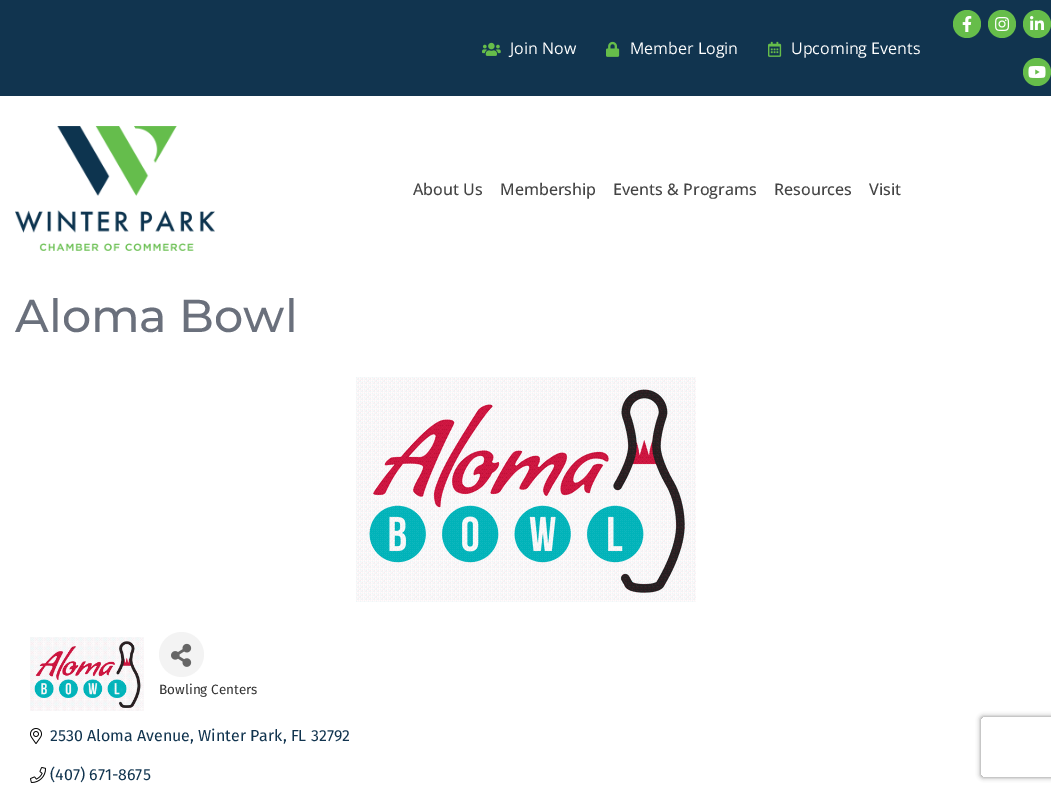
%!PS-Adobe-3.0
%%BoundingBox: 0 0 1051 791
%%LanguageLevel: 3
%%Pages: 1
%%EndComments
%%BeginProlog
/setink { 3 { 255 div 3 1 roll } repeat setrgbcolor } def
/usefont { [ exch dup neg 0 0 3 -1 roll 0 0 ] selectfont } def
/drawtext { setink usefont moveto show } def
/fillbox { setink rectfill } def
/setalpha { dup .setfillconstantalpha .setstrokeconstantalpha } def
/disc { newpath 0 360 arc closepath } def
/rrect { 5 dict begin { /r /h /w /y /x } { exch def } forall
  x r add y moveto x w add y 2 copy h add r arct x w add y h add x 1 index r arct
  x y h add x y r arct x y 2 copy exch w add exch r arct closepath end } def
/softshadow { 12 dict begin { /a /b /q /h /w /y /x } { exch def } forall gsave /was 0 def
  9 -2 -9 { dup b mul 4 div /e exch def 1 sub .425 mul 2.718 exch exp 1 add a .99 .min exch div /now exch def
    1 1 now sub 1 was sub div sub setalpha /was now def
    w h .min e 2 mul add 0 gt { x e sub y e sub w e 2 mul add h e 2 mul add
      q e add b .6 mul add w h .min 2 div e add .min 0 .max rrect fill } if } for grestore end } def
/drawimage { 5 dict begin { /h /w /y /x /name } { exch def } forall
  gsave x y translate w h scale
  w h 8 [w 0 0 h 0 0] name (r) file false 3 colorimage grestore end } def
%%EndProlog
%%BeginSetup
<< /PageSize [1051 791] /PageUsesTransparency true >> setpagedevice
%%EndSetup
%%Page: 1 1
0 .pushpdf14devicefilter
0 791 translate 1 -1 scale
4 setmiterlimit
0 0 1051 791 255 255 255 fillbox
0 0 1051 96 17 52 79 fillbox
(assets/img1.rgb) 482 42 19 14 drawimage
(Join Now) 510 54 /OpenSans-Regular 16 255 255 255 drawtext
(assets/img2.rgb) 606 41 14 16 drawimage
(Member Login) 630 54 /OpenSans-Regular 16 255 255 255 drawtext
(assets/img3.rgb) 768 41 14 16 drawimage
(Upcoming Events) 791 54 /OpenSans-Regular 16 255 255 255 drawtext
102 189 74 setink
967 24 14 disc fill
(assets/img4.rgb) 962 16 10 16 drawimage
1002 24 14 disc fill
(assets/img5.rgb) 995 17 15 14 drawimage
1037 24 14 disc fill
(assets/img6.rgb) 1030 16 14 14 drawimage
1037 72 14 disc fill
(assets/img7.rgb) 1028 66 18 12 drawimage
(assets/img8.rgb) 15 126 200 125 drawimage
(About Us) 413 195 /OpenSans-Medium 16 68 68 68 drawtext
(Membership) 500 195 /OpenSans-Medium 16 68 68 68 drawtext
(Events & Programs) 613 195 /OpenSans-Medium 16 68 68 68 drawtext
(Resources) 774 195 /OpenSans-Medium 16 68 68 68 drawtext
(Visit) 869 195 /OpenSans-Medium 16 68 68 68 drawtext
(Aloma Bowl) 15 332 /Montserrat-Thin 46 106 112 124 drawtext
(assets/img9.rgb) 356 377 340 225 drawimage
(assets/img10.rgb) 30 637 114 74 drawimage
243 243 243 setink
181.5 654.5 22.5 disc fill
(assets/img11.rgb) 171 643 21 24 drawimage
(Bowling Centers) 159 694 /FiraSans-Regular 13.5 51 51 51 drawtext
(assets/img12.rgb) 30 728 12 16 drawimage
(2530 Aloma Avenue, Winter Park, FL 32792) 50 741 /FiraSans-Regular 16 17 52 79 drawtext
(assets/img13.rgb) 30 767 16 16 drawimage
(\(407\) 671-8675) 50 780 /FiraSans-Regular 16 17 52 79 drawtext
gsave
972 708 moveto 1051 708 lineto 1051 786 lineto 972 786 lineto closepath 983 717 moveto 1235 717 lineto 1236 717 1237 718 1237 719 curveto 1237 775 lineto 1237 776 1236 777 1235 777 curveto 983 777 lineto 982 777 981 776 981 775 curveto 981 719 lineto 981 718 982 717 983 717 curveto closepath eoclip newpath
128 128 128 setink
981 717 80 60 2 2.5 1 softshadow
grestore
.poppdf14devicefilter showpage
%%EOF
